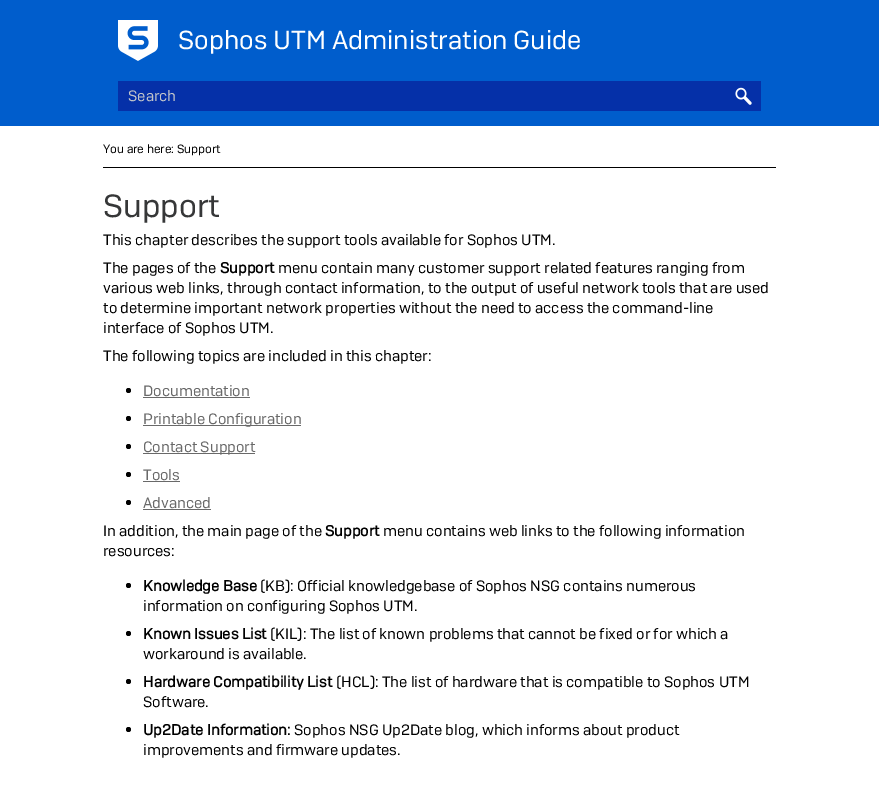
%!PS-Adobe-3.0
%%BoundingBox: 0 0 879 787
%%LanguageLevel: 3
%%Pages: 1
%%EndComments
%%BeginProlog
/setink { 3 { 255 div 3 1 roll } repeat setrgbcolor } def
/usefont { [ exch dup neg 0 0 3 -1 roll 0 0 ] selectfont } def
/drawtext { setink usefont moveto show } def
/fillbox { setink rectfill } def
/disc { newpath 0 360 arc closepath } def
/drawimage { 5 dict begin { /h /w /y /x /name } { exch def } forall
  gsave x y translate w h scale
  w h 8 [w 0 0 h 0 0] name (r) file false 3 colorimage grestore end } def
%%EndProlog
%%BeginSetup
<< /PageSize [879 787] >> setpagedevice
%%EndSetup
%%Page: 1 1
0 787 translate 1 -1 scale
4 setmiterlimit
0 0 879 787 255 255 255 fillbox
0 0 879 126 0 93 204 fillbox
(assets/img1.rgb) 118 20 40 41 drawimage
(Sophos UTM Administration Guide) 178 49 /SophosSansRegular-Regular 26 255 255 255 drawtext
118 81 643 30 5 48 168 fillbox
(Search) 128 101 /SophosSansRegular-Regular 15 194 197 202 drawtext
(assets/img2.rgb) 735 87 17 18 drawimage
103 167 673 1 0 0 0 fillbox
(You are here: Support) 103 153 /SophosSansRegular-Regular 12 0 0 0 drawtext
(Support) 103 217 /SophosSansRegular-Regular 32 54 55 56 drawtext
(This chapter describes the support tools available for Sophos UTM.) 103 245 /SophosSansRegular-Regular 15 0 0 0 drawtext
(The pages of the) 103 273 /SophosSansRegular-Regular 15 0 0 0 drawtext
(Support) 220 273 /SophosSansRegular-Bold 15 0 0 0 drawtext
(menu contain many customer support related features ranging from) 278 273 /SophosSansRegular-Regular 15 0 0 0 drawtext
(various web links, through contact information, to the output of useful network tools that are used) 103 293 /SophosSansRegular-Regular 15 0 0 0 drawtext
(to determine important network properties without the need to access the command-line) 103 313 /SophosSansRegular-Regular 15 0 0 0 drawtext
(interface of Sophos UTM.) 103 333 /SophosSansRegular-Regular 15 0 0 0 drawtext
(The following topics are included in this chapter:) 103 361 /SophosSansRegular-Regular 15 0 0 0 drawtext
128.5 390.5 2.5 disc fill
(Documentation) 143 396 /SophosSansRegular-Regular 15 105 105 105 drawtext
143 397 107 1 105 105 105 fillbox
0 0 0 setink
128.5 418.5 2.5 disc fill
143 425 158 1 105 105 105 fillbox
(Printable Configuration) 143 424 /SophosSansRegular-Regular 15 105 105 105 drawtext
0 0 0 setink
128.5 446.5 2.5 disc fill
143 453 112 1 105 105 105 fillbox
(Contact Support) 143 452 /SophosSansRegular-Regular 15 105 105 105 drawtext
0 0 0 setink
128.5 474.5 2.5 disc fill
(Tools) 143 480 /SophosSansRegular-Regular 15 105 105 105 drawtext
143 481 37 1 105 105 105 fillbox
0 0 0 setink
128.5 502.5 2.5 disc fill
(Advanced) 143 508 /SophosSansRegular-Regular 15 105 105 105 drawtext
143 509 68 1 105 105 105 fillbox
(In addition, the main page of the) 103 536 /SophosSansRegular-Regular 15 0 0 0 drawtext
(Support) 325 536 /SophosSansRegular-Bold 15 0 0 0 drawtext
(menu contains web links to the following information) 383 536 /SophosSansRegular-Regular 15 0 0 0 drawtext
(resources:) 103 556 /SophosSansRegular-Regular 15 0 0 0 drawtext
128.5 585.5 2.5 disc fill
(Knowledge Base) 143 591 /SophosSansRegular-Bold 15 0 0 0 drawtext
(\(KB\): Official knowledgebase of Sophos NSG contains numerous) 260 591 /SophosSansRegular-Regular 15 0 0 0 drawtext
(information on configuring Sophos UTM.) 143 611 /SophosSansRegular-Regular 15 0 0 0 drawtext
128.5 633.5 2.5 disc fill
(Known Issues List) 143 639 /SophosSansRegular-Bold 15 0 0 0 drawtext
(\(KIL\): The list of known problems that cannot be fixed or for which a) 270 639 /SophosSansRegular-Regular 15 0 0 0 drawtext
(workaround is available.) 143 659 /SophosSansRegular-Regular 15 0 0 0 drawtext
128.5 681.5 2.5 disc fill
(Hardware Compatibility List) 143 687 /SophosSansRegular-Bold 15 0 0 0 drawtext
(\(HCL\): The list of hardware that is compatible to Sophos UTM) 336 687 /SophosSansRegular-Regular 15 0 0 0 drawtext
(Software.) 143 707 /SophosSansRegular-Regular 15 0 0 0 drawtext
128.5 729.5 2.5 disc fill
(Up2Date Information:) 143 735 /SophosSansRegular-Bold 15 0 0 0 drawtext
(Sophos NSG Up2Date blog, which informs about product) 294 735 /SophosSansRegular-Regular 15 0 0 0 drawtext
(improvements and firmware updates.) 143 755 /SophosSansRegular-Regular 15 0 0 0 drawtext
showpage
%%EOF
